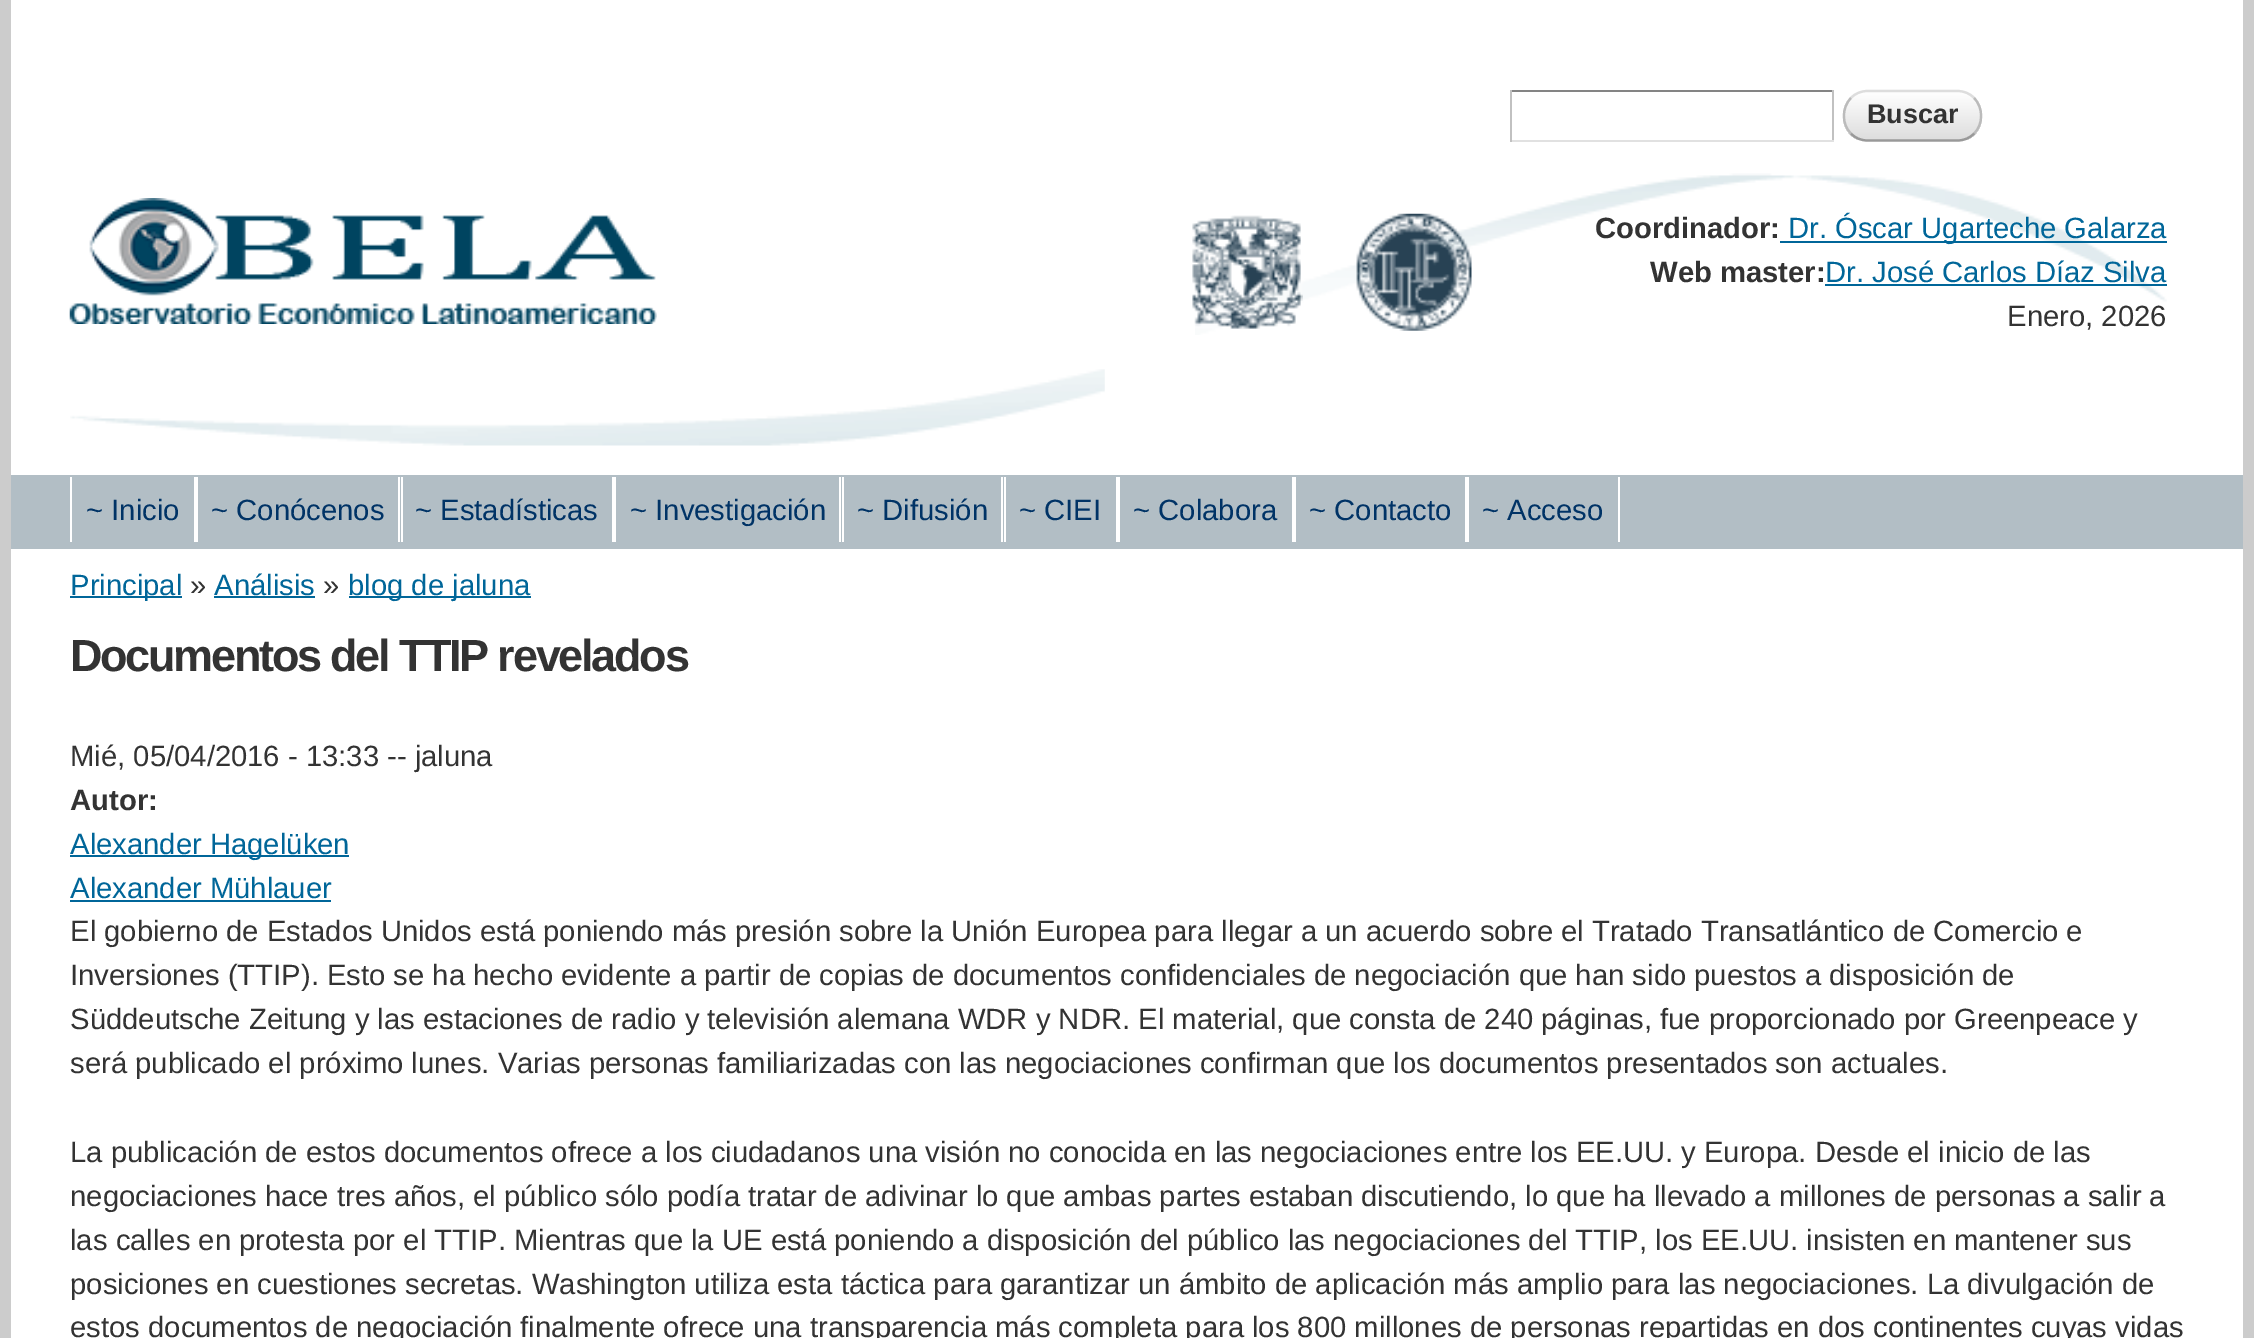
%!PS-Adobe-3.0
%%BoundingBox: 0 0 2254 1338
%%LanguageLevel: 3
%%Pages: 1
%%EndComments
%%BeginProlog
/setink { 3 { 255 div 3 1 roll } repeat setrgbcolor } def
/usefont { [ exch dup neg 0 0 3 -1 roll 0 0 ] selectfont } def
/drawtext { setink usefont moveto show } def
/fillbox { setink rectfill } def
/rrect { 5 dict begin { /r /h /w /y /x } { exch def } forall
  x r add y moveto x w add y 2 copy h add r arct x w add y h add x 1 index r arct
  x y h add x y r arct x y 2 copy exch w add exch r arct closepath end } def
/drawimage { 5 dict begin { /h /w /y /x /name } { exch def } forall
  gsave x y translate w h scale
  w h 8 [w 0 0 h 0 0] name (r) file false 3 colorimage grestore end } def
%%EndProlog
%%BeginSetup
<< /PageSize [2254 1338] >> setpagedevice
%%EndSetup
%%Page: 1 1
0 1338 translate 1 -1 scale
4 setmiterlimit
0 0 2254 1338 204 204 204 fillbox
11 0 2232 475 255 255 255 fillbox
1510 90 324 2 132 132 132 fillbox
1832 90 2 52 193 193 193 fillbox
1510 140 324 2 225 225 225 fillbox
1510 90 2 52 193 193 193 fillbox
gsave
1843 90 139 52 25 rrect clip newpath
gsave 1843 92 moveto 1982 92 lineto 1982 140 lineto 1843 140 lineto closepath clip newpath
<< /ShadingType 2 /ColorSpace /DeviceRGB /Coords [1845 92 1845 140] /Extend [true true] /Function << /FunctionType 2 /Domain [0 1] /C0 [1 1 1] /C1 [0.867 0.867 0.867] /N 1 >> >> shfill grestore
grestore
221 221 221 setink
2.2 setlinewidth
1851 98 moveto 1855 93.5 1861 91 1867.5 91 curveto 1957.5 91 lineto 1964 91 1970 93.5 1974 98 curveto stroke
187 187 187 setink
1974 98 moveto 1983.5 107.5 1983.5 124.5 1974 133.5 curveto stroke
153 153 153 setink
1974 133.5 moveto 1970 138 1964 140.5 1957.5 140.5 curveto 1867.5 140.5 lineto 1861 140.5 1855 138 1851 133.5 curveto stroke
187 187 187 setink
1851 133.5 moveto 1841.5 124.5 1841.5 107.5 1851 98 curveto stroke
(Buscar) 1867 123 /LiberationSans-Bold 27 51 51 51 drawtext
(assets/img1.rgb) 70 369 1035 77 drawimage
(assets/img2.rgb) 69 198 588 126 drawimage
(assets/img3.rgb) 1195 173 972 162 drawimage
(assets/img4.rgb) 1192 215 111 114 drawimage
(assets/img5.rgb) 1356 213 116 118 drawimage
(Coordinador:) 1595 238 /LiberationSans-Bold 29.25 51 51 51 drawtext
1780 241 387 2 0 102 153 fillbox
(Dr. Óscar Ugarteche Galarza) 1788 238 /LiberationSans-Regular 29.25 0 102 153 drawtext
(Web master:) 1650 282 /LiberationSans-Bold 29.25 51 51 51 drawtext
(Dr. José Carlos Díaz Silva) 1825 282 /LiberationSans-Regular 29.25 0 102 153 drawtext
1825 284 342 2 0 102 153 fillbox
(Enero, 2026) 2007 326 /LiberationSans-Regular 29.25 51 51 51 drawtext
11 475 2232 74 178 190 197 fillbox
(~ Inicio) 86 520 /LiberationSans-Regular 29.25 0 51 102 drawtext
70 477 2 65 255 255 255 fillbox
(~ Conócenos) 211 520 /LiberationSans-Regular 29.25 0 51 102 drawtext
194 477 4 65 255 255 255 fillbox
398 477 2 65 255 255 255 fillbox
(~ Estadísticas) 415 520 /LiberationSans-Regular 29.25 0 51 102 drawtext
612 477 4 65 255 255 255 fillbox
401 477 2 65 255 255 255 fillbox
(~ Investigación) 630 520 /LiberationSans-Regular 29.25 0 51 102 drawtext
(~ Difusión) 857 520 /LiberationSans-Regular 29.25 0 51 102 drawtext
839 477 2 65 255 255 255 fillbox
1001 477 2 65 255 255 255 fillbox
842 477 2 65 255 255 255 fillbox
(~ CIEI) 1019 520 /LiberationSans-Regular 29.25 0 51 102 drawtext
1004 477 2 65 255 255 255 fillbox
(~ Colabora) 1133 520 /LiberationSans-Regular 29.25 0 51 102 drawtext
1116 477 4 65 255 255 255 fillbox
1292 477 4 65 255 255 255 fillbox
(~ Contacto) 1309 520 /LiberationSans-Regular 29.25 0 51 102 drawtext
(~ Acceso) 1482 520 /LiberationSans-Regular 29.25 0 51 102 drawtext
1465 477 4 65 255 255 255 fillbox
1618 477 2 65 255 255 255 fillbox
11 549 2232 789 255 255 255 fillbox
70 596 112 2 0 102 153 fillbox
(Principal) 70 595 /LiberationSans-Regular 29.25 0 102 153 drawtext
(») 190 595 /LiberationSans-Regular 29.25 51 51 51 drawtext
(Análisis) 214 595 /LiberationSans-Regular 29.25 0 102 153 drawtext
214 596 101 2 0 102 153 fillbox
(») 323 595 /LiberationSans-Regular 29.25 51 51 51 drawtext
349 596 182 2 0 102 153 fillbox
(blog de jaluna) 348 595 /LiberationSans-Regular 29.25 0 102 153 drawtext
/LiberationSans-Bold 45 usefont
51 51 51 setink
70 671 moveto -2.25 0 (Documentos del TTIP revelados) ashow
(Mié, 05/04/2016 - 13:33 -- jaluna) 70 766 /LiberationSans-Regular 29.25 51 51 51 drawtext
(Autor:) 70 810 /LiberationSans-Bold 29.25 51 51 51 drawtext
70 855 279 2 0 102 153 fillbox
(Alexander Hagelüken) 70 854 /LiberationSans-Regular 29.25 0 102 153 drawtext
(Alexander Mühlauer) 70 898 /LiberationSans-Regular 29.25 0 102 153 drawtext
70 900 261 2 0 102 153 fillbox
(El gobierno de Estados Unidos está poniendo más presión sobre la Unión Europea para llegar a un acuerdo sobre el Tratado Transatlántico de Comercio e) 70 941 /LiberationSans-Regular 29.25 51 51 51 drawtext
(Inversiones \(TTIP\). Esto se ha hecho evidente a partir de copias de documentos confidenciales de negociación que han sido puestos a disposición de) 70 985 /LiberationSans-Regular 29.25 51 51 51 drawtext
(Süddeutsche Zeitung y las estaciones de radio y televisión alemana WDR y NDR. El material, que consta de 240 páginas, fue proporcionado por Greenpeace y) 70 1029 /LiberationSans-Regular 29.25 51 51 51 drawtext
(será publicado el próximo lunes. Varias personas familiarizadas con las negociaciones confirman que los documentos presentados son actuales.) 70 1073 /LiberationSans-Regular 29.25 51 51 51 drawtext
(La publicación de estos documentos ofrece a los ciudadanos una visión no conocida en las negociaciones entre los EE.UU. y Europa. Desde el inicio de las) 70 1162 /LiberationSans-Regular 29.25 51 51 51 drawtext
(negociaciones hace tres años, el público sólo podía tratar de adivinar lo que ambas partes estaban discutiendo, lo que ha llevado a millones de personas a salir a) 70 1206 /LiberationSans-Regular 29.25 51 51 51 drawtext
(las calles en protesta por el TTIP. Mientras que la UE está poniendo a disposición del público las negociaciones del TTIP, los EE.UU. insisten en mantener sus) 70 1250 /LiberationSans-Regular 29.25 51 51 51 drawtext
(posiciones en cuestiones secretas. Washington utiliza esta táctica para garantizar un ámbito de aplicación más amplio para las negociaciones. La divulgación de) 70 1294 /LiberationSans-Regular 29.25 51 51 51 drawtext
(estos documentos de negociación finalmente ofrece una transparencia más completa para los 800 millones de personas repartidas en dos continentes cuyas vidas) 70 1337 /LiberationSans-Regular 29.25 51 51 51 drawtext
showpage
%%EOF
